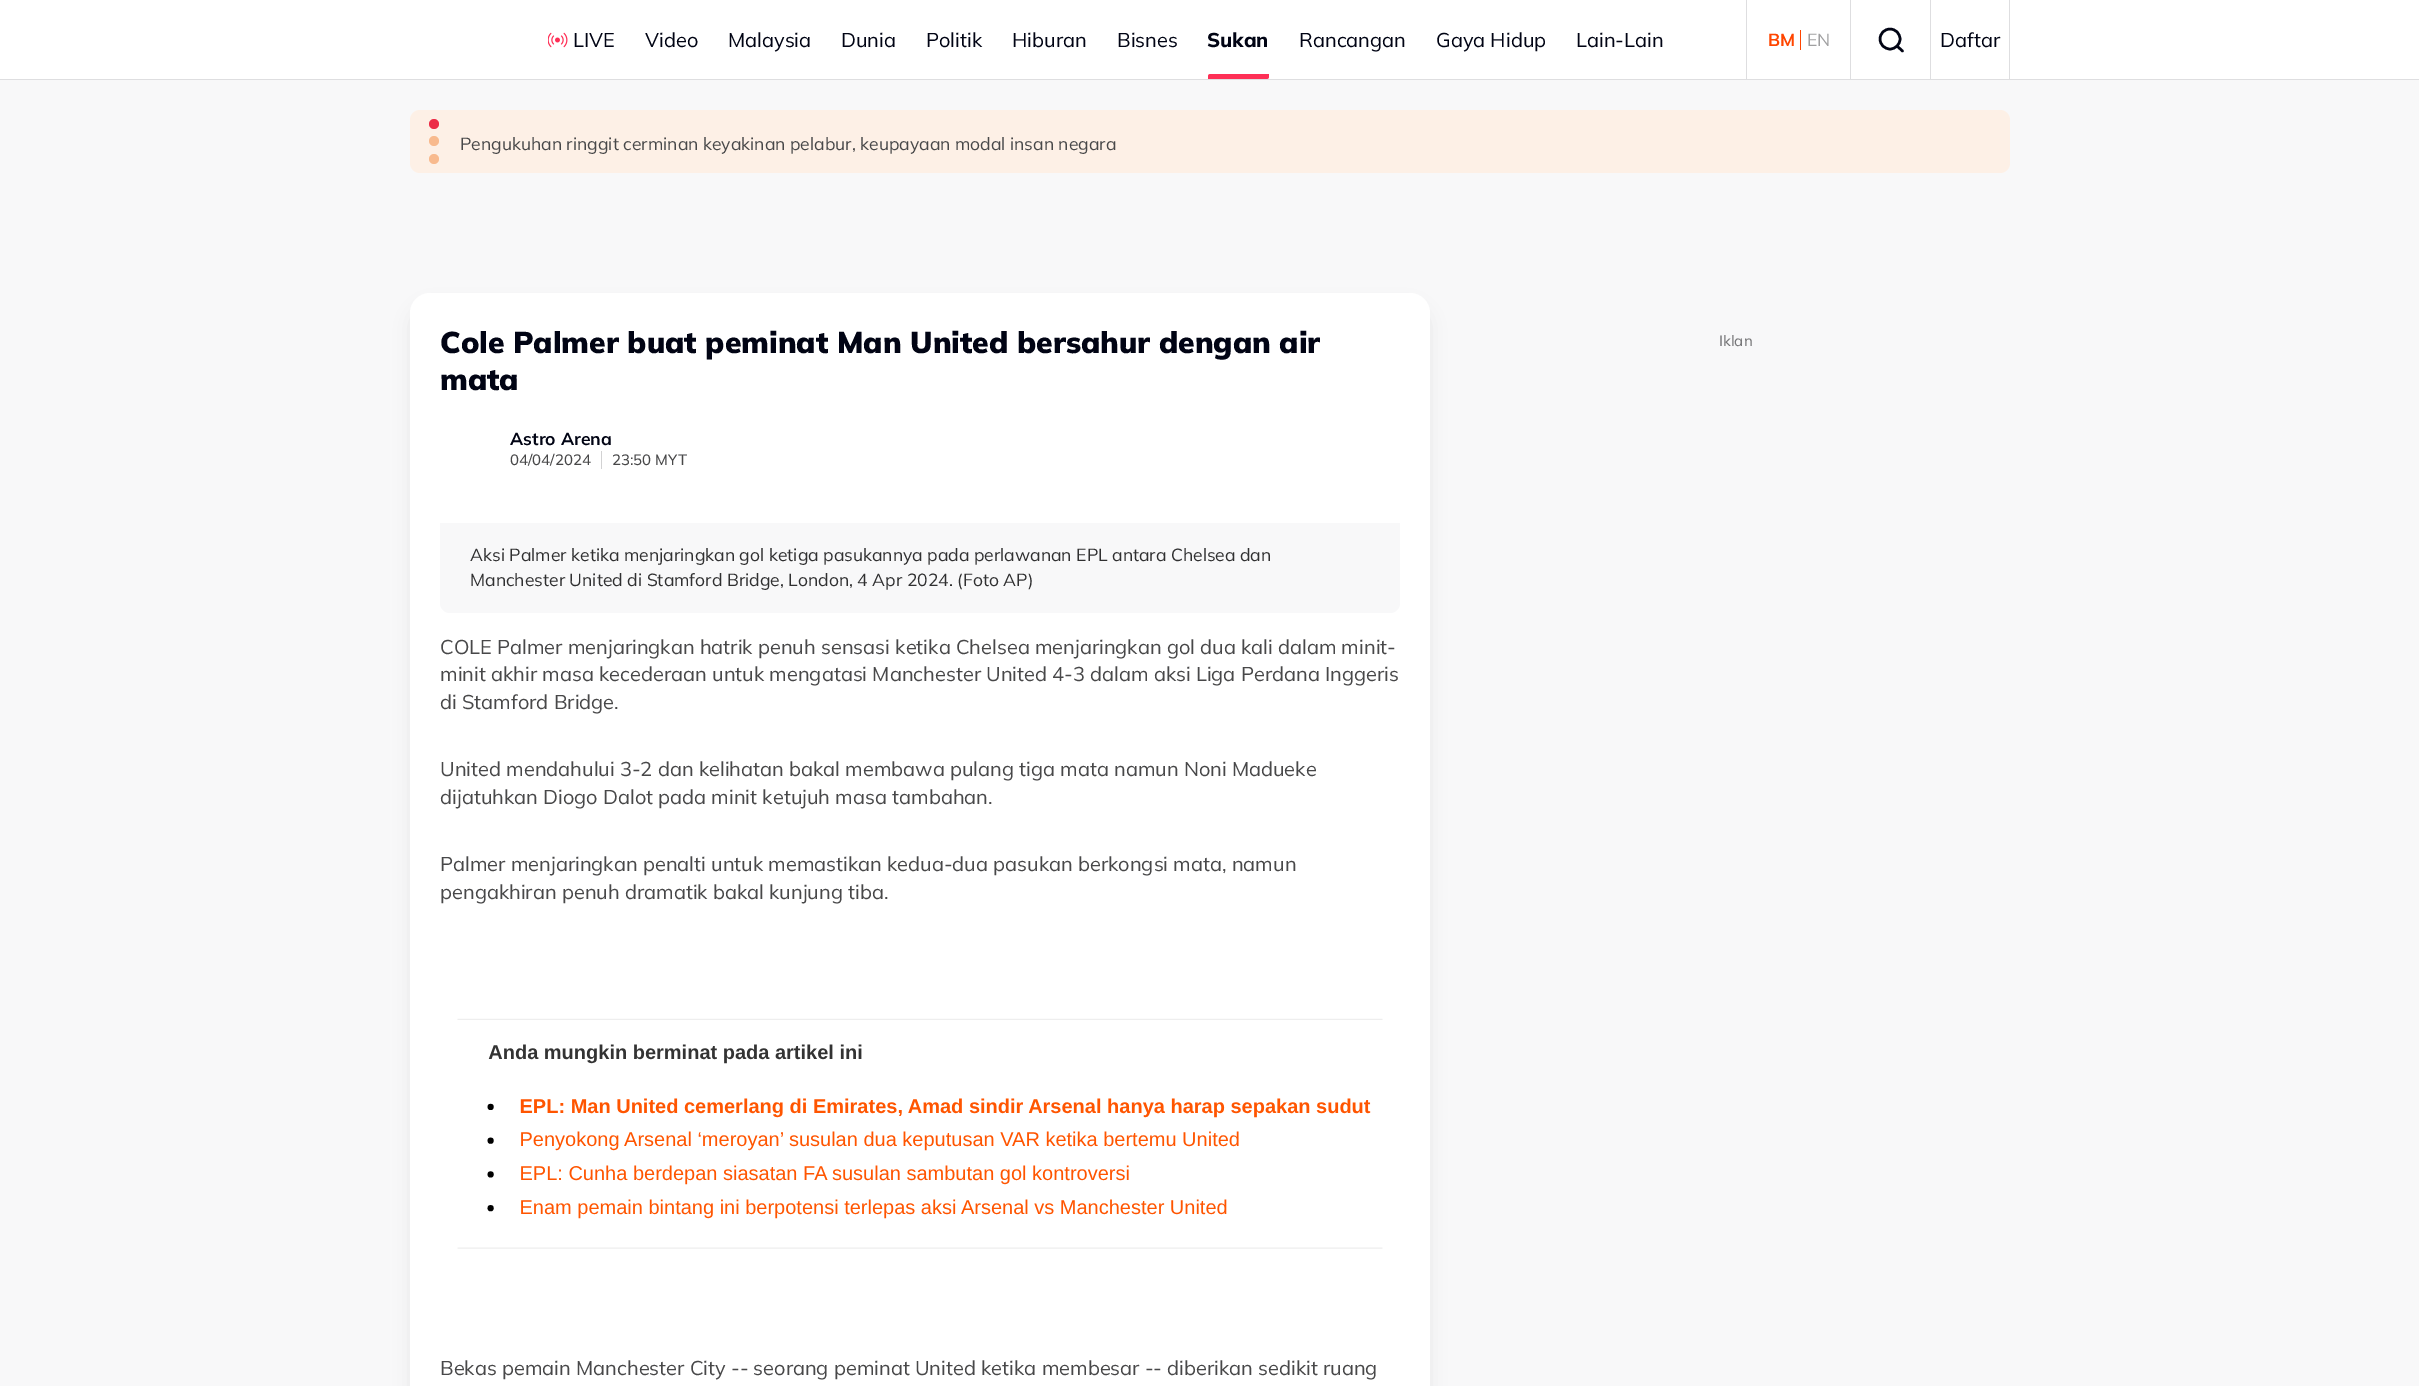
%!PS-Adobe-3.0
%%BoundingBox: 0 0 2419 1386
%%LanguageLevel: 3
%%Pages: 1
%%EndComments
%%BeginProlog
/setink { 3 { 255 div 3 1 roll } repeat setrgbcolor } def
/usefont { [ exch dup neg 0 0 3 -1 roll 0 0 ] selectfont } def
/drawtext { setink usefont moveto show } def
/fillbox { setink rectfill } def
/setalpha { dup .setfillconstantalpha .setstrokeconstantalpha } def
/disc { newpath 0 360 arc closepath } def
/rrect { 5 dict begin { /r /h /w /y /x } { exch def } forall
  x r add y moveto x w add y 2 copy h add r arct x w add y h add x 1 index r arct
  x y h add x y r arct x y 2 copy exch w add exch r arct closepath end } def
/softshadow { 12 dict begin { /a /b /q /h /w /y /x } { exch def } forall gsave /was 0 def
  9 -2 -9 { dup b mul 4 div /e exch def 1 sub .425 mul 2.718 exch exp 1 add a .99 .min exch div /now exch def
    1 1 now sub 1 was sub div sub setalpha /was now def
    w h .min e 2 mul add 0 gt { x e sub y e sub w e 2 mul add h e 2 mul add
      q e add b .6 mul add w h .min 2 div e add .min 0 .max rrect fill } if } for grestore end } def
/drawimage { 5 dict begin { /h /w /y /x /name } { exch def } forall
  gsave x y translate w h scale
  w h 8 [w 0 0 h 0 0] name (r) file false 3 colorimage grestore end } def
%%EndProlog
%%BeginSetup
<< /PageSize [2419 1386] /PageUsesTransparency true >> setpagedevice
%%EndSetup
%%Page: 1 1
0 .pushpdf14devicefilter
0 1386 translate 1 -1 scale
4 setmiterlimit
0 0 2419 1386 255 255 255 fillbox
0 79 2419 1 222 222 224 fillbox
(assets/img1.rgb) 548 32 20 16 drawimage
(LIVE) 573 47 /Mulish-Regular 20 1 4 20 drawtext
(Video) 645 47 /Mulish-Regular 20 1 4 20 drawtext
(Malaysia) 728 47 /Mulish-Regular 20 1 4 20 drawtext
(Dunia) 841 47 /Mulish-Regular 20 1 4 20 drawtext
(Politik) 926 47 /Mulish-Regular 20 1 4 20 drawtext
(Hiburan) 1012 47 /Mulish-Regular 20 1 4 20 drawtext
(Bisnes) 1117 47 /Mulish-Regular 20 1 4 20 drawtext
(Sukan) 1207 47 /Mulish-ExtraBold 20 1 4 20 drawtext
254 47 86 setink
1210.5 74 moveto 1269 74 lineto 1269 76.5 lineto 1269 78 1268 79 1266.5 79 curveto 1208 79 lineto 1208 76.5 lineto 1208 75 1209 74 1210.5 74 curveto closepath fill
(Rancangan) 1299 47 /Mulish-Regular 20 1 4 20 drawtext
(Gaya Hidup) 1436 47 /Mulish-Regular 20 1 4 20 drawtext
(Lain-Lain) 1576 47 /Mulish-Regular 20 1 4 20 drawtext
1746 0 1 79 222 222 224 fillbox
(BM) 1768 46 /Mulish-Bold 17.5 255 69 0 drawtext
1800 30 1 20 255 69 0 fillbox
(EN) 1807 46 /Mulish-Regular 17.5 160 160 161 drawtext
1850 0 1 79 222 222 224 fillbox
1 4 20 setink
2.5 setlinewidth
1890 39 10 disc stroke
1 setlinecap
1 setlinejoin
1902.5 51 moveto 1897 46 lineto stroke
2009 0 1 79 222 222 224 fillbox
1930 0 1 79 222 222 224 fillbox
(Daftar) 1940 47 /Mulish-Regular 20 1 4 20 drawtext
0 80 2419 1306 248 248 249 fillbox
253 240 230 setink
410 110 1600 63 10 rrect fill
236 45 71 setink
434 124 5 disc fill
248 186 142 setink
434 141 5 disc fill
434 159 5 disc fill
(Pengukuhan ringgit cerminan keyakinan pelabur, keupayaan modal insan negara) 460 150 /Mulish-Regular 17.5 72 72 73 drawtext
0 0 0 setink
414 309 1012 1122 16 9.5 0.1 softshadow
255 255 255 setink
430 293 moveto 1410 293 lineto 1421 293 1430 302 1430 313 curveto 1430 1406 lineto 410 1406 lineto 410 313 lineto 410 302 419 293 430 293 curveto closepath fill
(Cole Palmer buat peminat Man United bersahur dengan air) 440 353 /Mulish-Black 30 1 4 20 drawtext
(mata) 440 390 /Mulish-Black 30 1 4 20 drawtext
(Astro Arena) 510 445 /Mulish-Bold 17.5 1 4 20 drawtext
601 451 1 18 210 210 211 fillbox
(04/04/2024) 510 465 /Mulish-Medium 15 72 72 73 drawtext
(23:50 MYT) 612 465 /Mulish-Medium 15 72 72 73 drawtext
248 248 249 setink
440 523 moveto 1400 523 lineto 1400 603 lineto 1400 608.5 1395.5 613 1390 613 curveto 450 613 lineto 444.5 613 440 608.5 440 603 curveto closepath fill
(Aksi Palmer ketika menjaringkan gol ketiga pasukannya pada perlawanan EPL antara Chelsea dan) 470 561 /Mulish-Regular 17.5 48 48 49 drawtext
(Manchester United di Stamford Bridge, London, 4 Apr 2024. \(Foto AP\)) 470 586 /Mulish-Regular 17.5 48 48 49 drawtext
(COLE Palmer menjaringkan hatrik penuh sensasi ketika Chelsea menjaringkan gol dua kali dalam minit-) 440 654 /Mulish-Regular 20 72 72 73 drawtext
(minit akhir masa kecederaan untuk mengatasi Manchester United 4-3 dalam aksi Liga Perdana Inggeris) 440 681 /Mulish-Regular 20 72 72 73 drawtext
(di Stamford Bridge.) 440 709 /Mulish-Regular 20 72 72 73 drawtext
(United mendahului 3-2 dan kelihatan bakal membawa pulang tiga mata namun Noni Madueke) 440 776 /Mulish-Regular 20 72 72 73 drawtext
(dijatuhkan Diogo Dalot pada minit ketujuh masa tambahan.) 440 804 /Mulish-Regular 20 72 72 73 drawtext
(Palmer menjaringkan penalti untuk memastikan kedua-dua pasukan berkongsi mata, namun) 440 871 /Mulish-Regular 20 72 72 73 drawtext
(pengakhiran penuh dramatik bakal kunjung tiba.) 440 899 /Mulish-Regular 20 72 72 73 drawtext
(assets/img2.rgb) 457 1018 926 231 drawimage
(Bekas pemain Manchester City -- seorang peminat United ketika membesar -- diberikan sedikit ruang) 440 1375 /Mulish-Regular 20 72 72 73 drawtext
(Iklan) 1719 346 /Mulish-Medium 15 120 120 122 drawtext
.poppdf14devicefilter showpage
%%EOF
